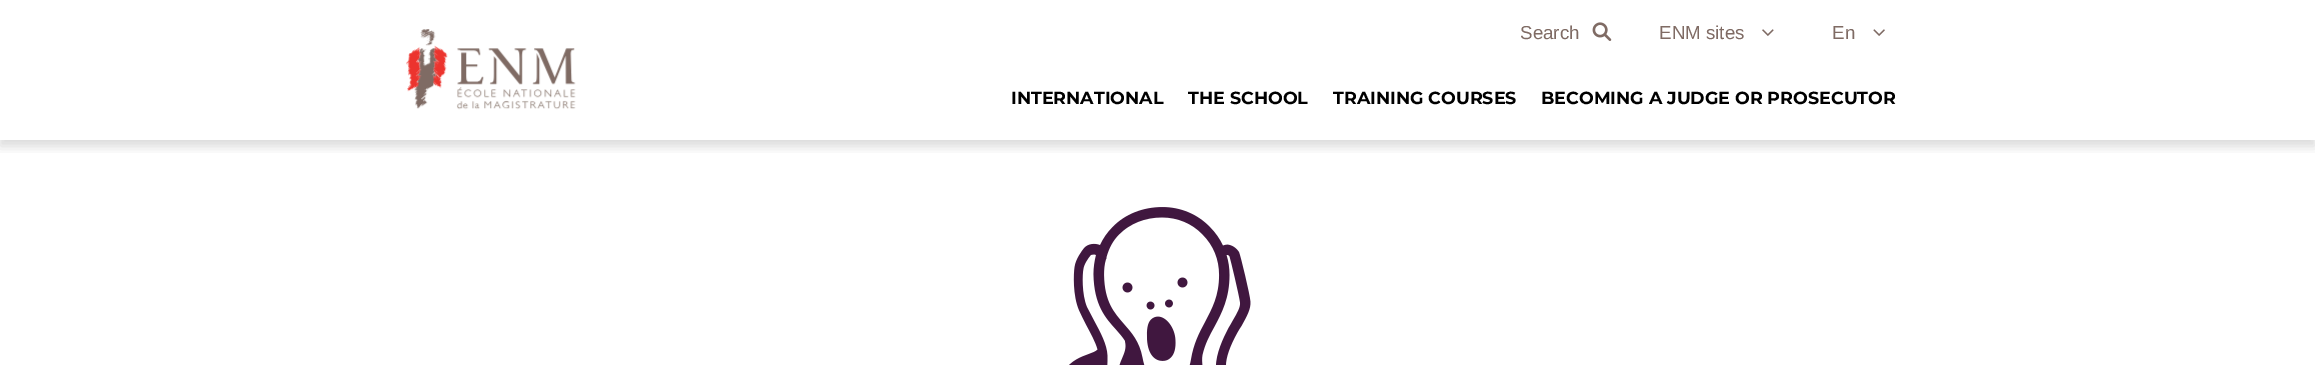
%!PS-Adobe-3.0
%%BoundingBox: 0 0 2315 365
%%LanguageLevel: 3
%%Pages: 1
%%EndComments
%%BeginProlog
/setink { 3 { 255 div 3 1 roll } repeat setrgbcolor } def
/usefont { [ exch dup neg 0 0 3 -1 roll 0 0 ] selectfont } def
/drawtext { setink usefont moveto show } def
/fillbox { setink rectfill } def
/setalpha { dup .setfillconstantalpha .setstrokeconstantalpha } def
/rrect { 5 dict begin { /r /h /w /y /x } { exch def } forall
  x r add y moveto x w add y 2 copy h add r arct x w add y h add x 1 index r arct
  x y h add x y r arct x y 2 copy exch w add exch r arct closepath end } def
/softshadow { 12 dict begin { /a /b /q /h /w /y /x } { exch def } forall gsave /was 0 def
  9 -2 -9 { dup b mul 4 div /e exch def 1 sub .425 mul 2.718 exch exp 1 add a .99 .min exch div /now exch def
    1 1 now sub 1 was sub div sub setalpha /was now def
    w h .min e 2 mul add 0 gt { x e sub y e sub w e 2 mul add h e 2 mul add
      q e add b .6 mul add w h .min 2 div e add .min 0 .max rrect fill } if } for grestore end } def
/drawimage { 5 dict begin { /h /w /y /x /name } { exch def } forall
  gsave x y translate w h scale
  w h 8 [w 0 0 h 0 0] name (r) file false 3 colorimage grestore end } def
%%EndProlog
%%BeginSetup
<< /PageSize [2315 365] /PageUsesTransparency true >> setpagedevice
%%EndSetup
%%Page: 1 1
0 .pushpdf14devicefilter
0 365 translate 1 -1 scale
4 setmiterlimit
0 0 2315 365 255 255 255 fillbox
gsave
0 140 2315 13 rectclip
0 0 0 setink
0 6 2315 140 0 6 0.15 softshadow
grestore
(assets/img1.rgb) 406 29 170 81 drawimage
(Search) 1520 39 /LiberationSans-Regular 18.75 127 107 100 drawtext
(assets/img2.rgb) 1592 22 20 19 drawimage
(ENM sites) 1659 39 /LiberationSans-Regular 18.75 127 107 100 drawtext
(assets/img3.rgb) 1762 29 12 7 drawimage
(En) 1832 39 /LiberationSans-Regular 18.75 127 107 100 drawtext
(assets/img4.rgb) 1873 29 12 7 drawimage
(INTERNATIONAL) 1011 104 /Montserrat-Bold 17.5 0 0 0 drawtext
(THE SCHOOL) 1188 104 /Montserrat-Bold 17.5 0 0 0 drawtext
(TRAINING COURSES) 1333 104 /Montserrat-Bold 17.5 0 0 0 drawtext
(BECOMING A JUDGE OR PROSECUTOR) 1541 104 /Montserrat-Bold 17.5 0 0 0 drawtext
(assets/img5.rgb) 1069 207 182 158 drawimage
.poppdf14devicefilter showpage
%%EOF
